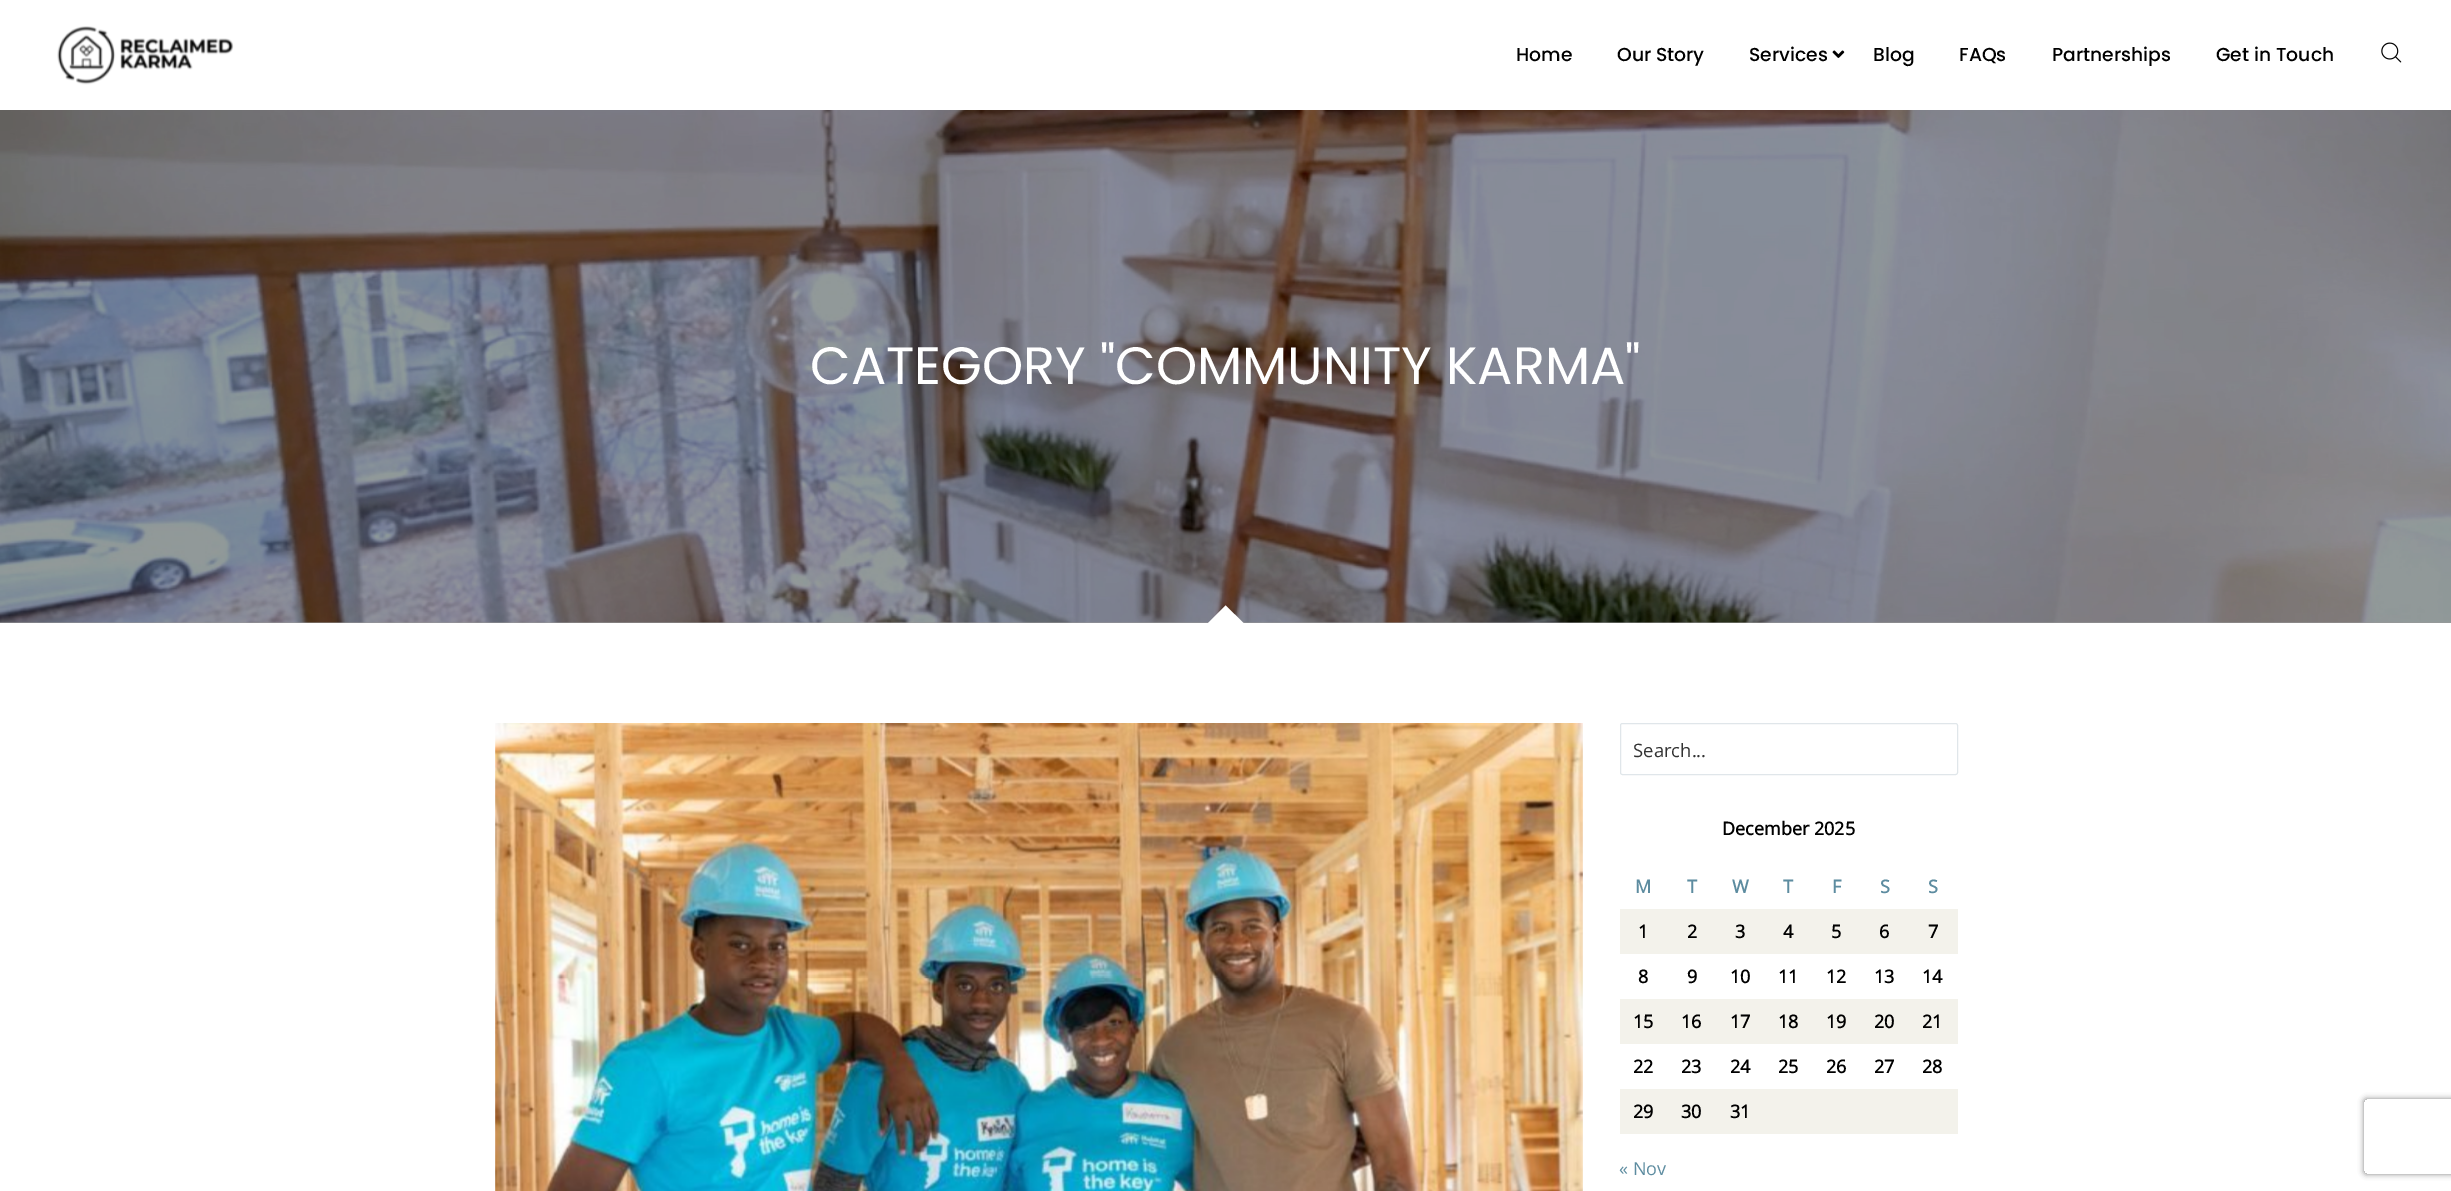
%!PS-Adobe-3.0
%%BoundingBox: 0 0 2451 1191
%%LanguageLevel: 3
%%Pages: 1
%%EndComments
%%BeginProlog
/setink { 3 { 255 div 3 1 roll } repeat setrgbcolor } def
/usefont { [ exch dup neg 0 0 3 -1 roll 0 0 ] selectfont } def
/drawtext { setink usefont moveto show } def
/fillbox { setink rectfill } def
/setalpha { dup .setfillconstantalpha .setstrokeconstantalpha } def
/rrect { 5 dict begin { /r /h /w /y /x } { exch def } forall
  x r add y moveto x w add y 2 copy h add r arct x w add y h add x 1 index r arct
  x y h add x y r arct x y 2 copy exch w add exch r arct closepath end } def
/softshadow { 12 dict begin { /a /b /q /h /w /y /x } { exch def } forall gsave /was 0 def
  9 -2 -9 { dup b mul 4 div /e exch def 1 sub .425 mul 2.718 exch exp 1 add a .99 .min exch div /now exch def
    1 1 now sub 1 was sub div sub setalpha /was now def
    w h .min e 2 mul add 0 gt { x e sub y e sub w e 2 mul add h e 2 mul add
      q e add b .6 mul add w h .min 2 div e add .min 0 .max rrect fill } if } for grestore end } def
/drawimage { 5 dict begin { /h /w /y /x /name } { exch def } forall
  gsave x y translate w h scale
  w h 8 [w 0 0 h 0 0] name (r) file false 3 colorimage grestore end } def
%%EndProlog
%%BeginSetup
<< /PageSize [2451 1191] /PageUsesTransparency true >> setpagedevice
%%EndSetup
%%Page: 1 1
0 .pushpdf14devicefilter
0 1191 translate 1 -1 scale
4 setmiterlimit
0 0 2451 1191 255 255 255 fillbox
0 622 2451 1 153 153 153 fillbox
(assets/img1.rgb) 57 26 177 59 drawimage
(Home) 1516 61 /Poppins-Medium 18.75 0 0 0 drawtext
(Our Story) 1617 61 /Poppins-Medium 18.75 0 0 0 drawtext
(Services) 1749 61 /Poppins-Medium 18.75 0 0 0 drawtext
(assets/img2.rgb) 1832 50 13 8 drawimage
(Blog) 1873 61 /Poppins-Medium 18.75 0 0 0 drawtext
(FAQs) 1959 61 /Poppins-Medium 18.75 0 0 0 drawtext
(Partnerships) 2052 61 /Poppins-Medium 18.75 0 0 0 drawtext
(Get in Touch) 2216 61 /Poppins-Medium 18.75 0 0 0 drawtext
(assets/img3.rgb) 2381 42 21 21 drawimage
(assets/img4.rgb) 0 110 2451 513 drawimage
(CATEGORY "COMMUNITY KARMA") 810 384 /Poppins-Regular 52.5 255 255 255 drawtext
gsave
495 110 1463 513 rectclip
1225.5 605.5 moveto 1243.5 623 lineto 1225.5 640.5 lineto 1208 623 lineto closepath fill
grestore
(assets/img5.rgb) 495 723 1088 468 drawimage
224 230 234 setink
1620.5 723.5 337 51 2 rrect stroke
(Search...) 1633 757 /OpenSans-Regular 18.5 51 51 51 drawtext
(December 2025) 1722 835 /OpenSans-Bold 18 0 0 0 drawtext
(M) 1635 893 /OpenSans-Bold 18 93 140 160 drawtext
(T) 1687 893 /OpenSans-Bold 18 93 140 160 drawtext
(W) 1732 893 /OpenSans-Bold 18 93 140 160 drawtext
(T) 1783 893 /OpenSans-Bold 18 93 140 160 drawtext
(F) 1832 893 /OpenSans-Bold 18 93 140 160 drawtext
(S) 1880 893 /OpenSans-Bold 18 93 140 160 drawtext
(S) 1928 893 /OpenSans-Bold 18 93 140 160 drawtext
1620 909 338 45 243 242 235 fillbox
(1) 1638 938 /OpenSans-Bold 18 0 0 0 drawtext
(2) 1687 938 /OpenSans-Bold 18 0 0 0 drawtext
(3) 1735 938 /OpenSans-Bold 18 0 0 0 drawtext
(4) 1783 938 /OpenSans-Bold 18 0 0 0 drawtext
(5) 1831 938 /OpenSans-Bold 18 0 0 0 drawtext
(6) 1879 938 /OpenSans-Bold 18 0 0 0 drawtext
(7) 1928 938 /OpenSans-Bold 18 0 0 0 drawtext
(8) 1638 983 /OpenSans-Bold 18 0 0 0 drawtext
(9) 1687 983 /OpenSans-Bold 18 0 0 0 drawtext
(10) 1730 983 /OpenSans-Bold 18 0 0 0 drawtext
(11) 1778 983 /OpenSans-Bold 18 0 0 0 drawtext
(12) 1826 983 /OpenSans-Bold 18 0 0 0 drawtext
(13) 1874 983 /OpenSans-Bold 18 0 0 0 drawtext
(14) 1922 983 /OpenSans-Bold 18 0 0 0 drawtext
1620 999 338 45 243 242 235 fillbox
(15) 1633 1028 /OpenSans-Bold 18 0 0 0 drawtext
(16) 1681 1028 /OpenSans-Bold 18 0 0 0 drawtext
(17) 1730 1028 /OpenSans-Bold 18 0 0 0 drawtext
(18) 1778 1028 /OpenSans-Bold 18 0 0 0 drawtext
(19) 1826 1028 /OpenSans-Bold 18 0 0 0 drawtext
(20) 1874 1028 /OpenSans-Bold 18 0 0 0 drawtext
(21) 1922 1028 /OpenSans-Bold 18 0 0 0 drawtext
(22) 1633 1073 /OpenSans-Bold 18 0 0 0 drawtext
(23) 1681 1073 /OpenSans-Bold 18 0 0 0 drawtext
(24) 1730 1073 /OpenSans-Bold 18 0 0 0 drawtext
(25) 1778 1073 /OpenSans-Bold 18 0 0 0 drawtext
(26) 1826 1073 /OpenSans-Bold 18 0 0 0 drawtext
(27) 1874 1073 /OpenSans-Bold 18 0 0 0 drawtext
(28) 1922 1073 /OpenSans-Bold 18 0 0 0 drawtext
1620 1089 338 45 243 242 235 fillbox
(29) 1633 1118 /OpenSans-Bold 18 0 0 0 drawtext
(30) 1681 1118 /OpenSans-Bold 18 0 0 0 drawtext
(31) 1730 1118 /OpenSans-Bold 18 0 0 0 drawtext
(« Nov) 1619 1175 /OpenSans-Regular 18 93 140 160 drawtext
gsave
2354 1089 moveto 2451 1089 lineto 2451 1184 lineto 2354 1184 lineto closepath 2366.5 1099 moveto 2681.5 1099 lineto 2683 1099 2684 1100 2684 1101.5 curveto 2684 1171.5 lineto 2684 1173 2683 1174 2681.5 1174 curveto 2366.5 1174 lineto 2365 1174 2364 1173 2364 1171.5 curveto 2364 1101.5 lineto 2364 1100 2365 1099 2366.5 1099 curveto closepath eoclip newpath
128 128 128 setink
2364 1099 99 75 2.5 3 1 softshadow
grestore
.poppdf14devicefilter showpage
%%EOF
